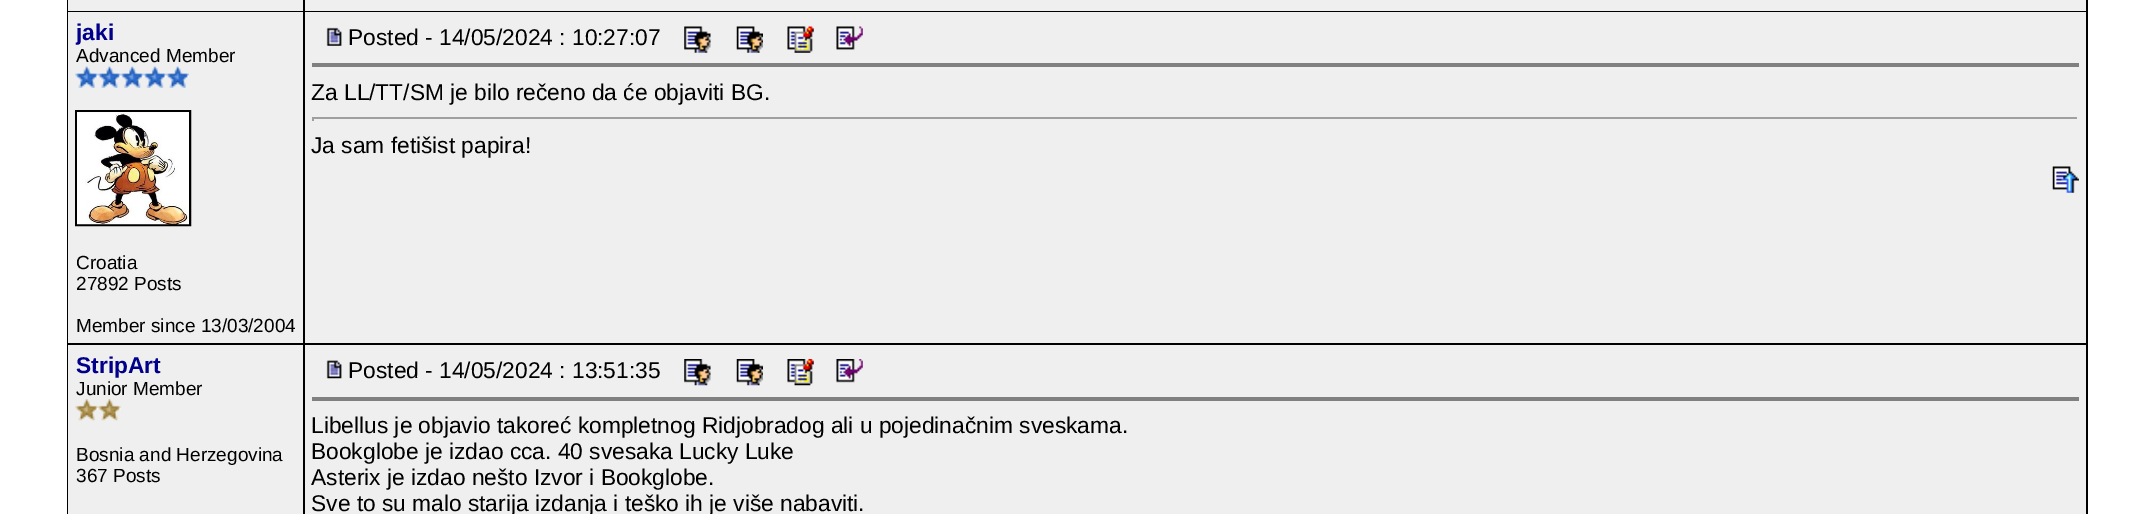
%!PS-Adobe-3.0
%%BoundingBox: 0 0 2154 514
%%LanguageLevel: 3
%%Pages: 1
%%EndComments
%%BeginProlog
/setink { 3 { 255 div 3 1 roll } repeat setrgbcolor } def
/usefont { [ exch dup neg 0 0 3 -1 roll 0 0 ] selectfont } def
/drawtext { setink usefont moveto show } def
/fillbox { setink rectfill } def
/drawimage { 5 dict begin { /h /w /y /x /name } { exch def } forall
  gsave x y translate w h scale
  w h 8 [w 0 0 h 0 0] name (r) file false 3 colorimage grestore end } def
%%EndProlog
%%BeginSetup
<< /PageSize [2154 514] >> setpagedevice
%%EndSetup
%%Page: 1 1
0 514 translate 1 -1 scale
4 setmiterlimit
0 0 2154 514 255 255 255 fillbox
67 0 2021 514 0 0 0 fillbox
68 0 235 11 239 239 239 fillbox
305 0 1781 11 239 239 239 fillbox
68 12 235 331 239 239 239 fillbox
(jaki) 76 40 /LiberationSans-Bold 22.75 0 0 139 drawtext
(Advanced Member) 76 62 /LiberationSans-Regular 19 0 0 0 drawtext
(assets/img1.rgb) 75 66 23 22 drawimage
(assets/img2.rgb) 98 66 23 22 drawimage
(assets/img3.rgb) 120 66 24 22 drawimage
(assets/img4.rgb) 143 66 24 22 drawimage
(assets/img5.rgb) 166 66 23 22 drawimage
2 setlinewidth
76 111 114 114 rectstroke
(assets/img6.rgb) 77 112 112 113 drawimage
(Croatia) 76 269 /LiberationSans-Regular 19 0 0 0 drawtext
(27892 Posts) 76 290 /LiberationSans-Regular 19 0 0 0 drawtext
(Member since 13/03/2004) 76 332 /LiberationSans-Regular 19 0 0 0 drawtext
305 12 1781 331 239 239 239 fillbox
(assets/img7.rgb) 326 27 16 19 drawimage
(Posted - 14/05/2024 : 10:27:07) 348 45 /LiberationSans-Regular 22.75 0 0 0 drawtext
(assets/img8.rgb) 684 26 27 27 drawimage
(assets/img9.rgb) 736 26 27 27 drawimage
(assets/img10.rgb) 787 26 27 27 drawimage
(assets/img11.rgb) 836 26 27 24 drawimage
312 63 1767 4 128 128 128 fillbox
(Za LL/TT/SM je bilo rečeno da će objaviti BG.) 311 100 /LiberationSans-Regular 22.75 0 0 0 drawtext
312 117 1767 2 159 159 159 fillbox
2077 117 2 4 238 238 238 fillbox
312 117 2 4 159 159 159 fillbox
(Ja sam fetišist papira!) 311 153 /LiberationSans-Regular 22.75 0 0 0 drawtext
(assets/img12.rgb) 2052 166 27 27 drawimage
68 345 235 169 239 239 239 fillbox
(StripArt) 76 373 /LiberationSans-Bold 22.75 0 0 139 drawtext
(Junior Member) 76 395 /LiberationSans-Regular 19 0 0 0 drawtext
(assets/img13.rgb) 75 399 23 22 drawimage
(assets/img14.rgb) 98 399 23 22 drawimage
(Bosnia and Herzegovina) 76 461 /LiberationSans-Regular 19 0 0 0 drawtext
(367 Posts) 76 482 /LiberationSans-Regular 19 0 0 0 drawtext
305 345 1781 169 239 239 239 fillbox
(assets/img15.rgb) 326 360 16 19 drawimage
(Posted - 14/05/2024 : 13:51:35) 348 378 /LiberationSans-Regular 22.75 0 0 0 drawtext
(assets/img16.rgb) 684 359 27 27 drawimage
(assets/img17.rgb) 736 359 27 27 drawimage
(assets/img18.rgb) 787 359 27 27 drawimage
(assets/img19.rgb) 836 359 27 24 drawimage
312 397 1767 4 128 128 128 fillbox
(Libellus je objavio takoreć kompletnog Ridjobradog ali u pojedinačnim sveskama.) 311 433 /LiberationSans-Regular 22.75 0 0 0 drawtext
(Bookglobe je izdao cca. 40 svesaka Lucky Luke) 311 459 /LiberationSans-Regular 22.75 0 0 0 drawtext
(Asterix je izdao nešto Izvor i Bookglobe.) 311 485 /LiberationSans-Regular 22.75 0 0 0 drawtext
(Sve to su malo starija izdanja i teško ih je više nabaviti.) 311 511 /LiberationSans-Regular 22.75 0 0 0 drawtext
showpage
%%EOF
